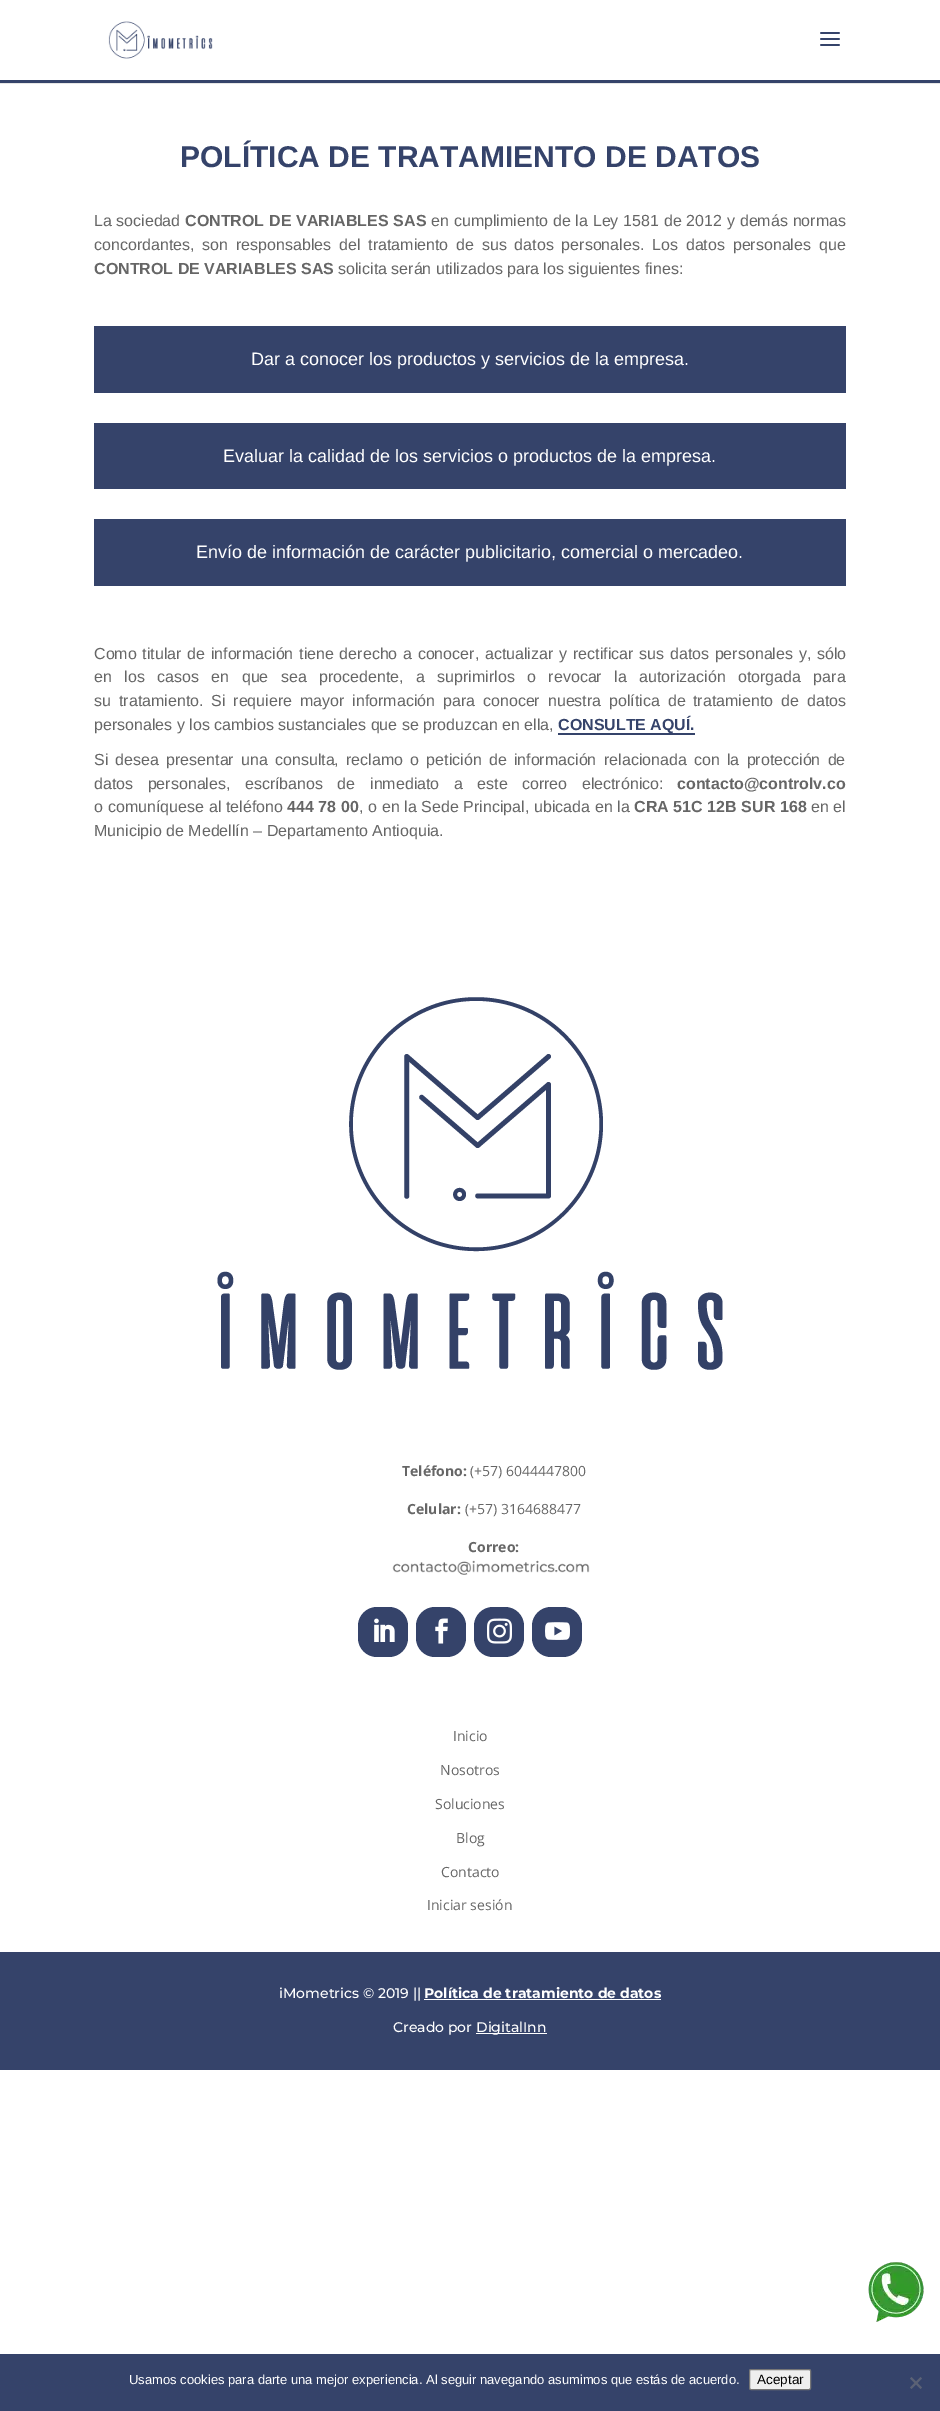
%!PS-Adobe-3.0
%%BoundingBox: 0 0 940 2411
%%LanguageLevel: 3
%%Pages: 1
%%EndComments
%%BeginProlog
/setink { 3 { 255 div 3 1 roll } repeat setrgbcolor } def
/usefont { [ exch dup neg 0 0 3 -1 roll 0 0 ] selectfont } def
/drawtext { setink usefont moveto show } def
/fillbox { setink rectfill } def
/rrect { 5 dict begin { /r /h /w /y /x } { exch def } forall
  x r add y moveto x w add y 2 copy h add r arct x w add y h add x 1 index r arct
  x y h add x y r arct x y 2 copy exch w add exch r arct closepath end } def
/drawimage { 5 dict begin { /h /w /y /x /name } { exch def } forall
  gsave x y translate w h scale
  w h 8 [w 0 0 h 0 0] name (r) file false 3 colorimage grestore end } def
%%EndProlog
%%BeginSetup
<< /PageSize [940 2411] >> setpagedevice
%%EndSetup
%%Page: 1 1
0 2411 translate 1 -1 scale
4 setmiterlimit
0 0 940 2411 255 255 255 fillbox
0 83 940 1 230 230 230 fillbox
0 80 940 3 53 67 106 fillbox
(assets/img1.rgb) 108 21 105 38 drawimage
(assets/img2.rgb) 820 32 20 14 drawimage
(POLÍTICA DE TRATAMIENTO DE DATOS) 180 167 /LiberationSans-Bold 30 53 67 106 drawtext
(La sociedad) 94 226 /LiberationSans-Regular 16 102 102 102 drawtext
/LiberationSans-Bold 16 usefont
185 226 moveto 0.4 0 32 (CONTROL DE VARIABLES SAS) widthshow
/LiberationSans-Regular 16 usefont
431 226 moveto 0.4 0 32 (en cumplimiento de la Ley 1581 de 2012 y demás normas) widthshow
94 250 moveto 3.4 0 32 (concordantes, son responsables del tratamiento de sus datos personales. Los datos personales que) widthshow
(CONTROL DE VARIABLES SAS) 94 274 /LiberationSans-Bold 16 102 102 102 drawtext
(solicita serán utilizados para los siguientes fines:) 338 274 /LiberationSans-Regular 16 102 102 102 drawtext
94 326 752 67 53 67 106 fillbox
(Dar a conocer los productos y servicios de la empresa.) 251 365 /LiberationSans-Regular 18 255 255 255 drawtext
94 423 752 66 53 67 106 fillbox
(Evaluar la calidad de los servicios o productos de la empresa.) 223 462 /LiberationSans-Regular 18 255 255 255 drawtext
94 519 752 67 53 67 106 fillbox
(Envío de información de carácter publicitario, comercial o mercadeo.) 196 558 /LiberationSans-Regular 18 255 255 255 drawtext
/LiberationSans-Regular 16 usefont
102 102 102 setink
94 659 moveto 1.25 0 32 (Como titular de información tiene derecho a conocer, actualizar y) widthshow
573 659 moveto 1.25 0 32 (rectificar sus datos personales y, sólo) widthshow
94 682 moveto 8 0 32 (en los casos en que sea) widthshow
319 682 moveto 8 0 32 (procedente, a suprimirlos o revocar la autorización otorgada para) widthshow
(su) 94 706 /LiberationSans-Regular 16 102 102 102 drawtext
(tratamiento.) 119 706 /LiberationSans-Regular 16 102 102 102 drawtext
211 706 moveto 3.5 0 32 (Si requiere mayor información para conocer nuestra política de) widthshow
693 706 moveto 3.5 0 32 (tratamiento de datos) widthshow
(personales y los cambios sustanciales que se produzcan en ella,) 94 730 /LiberationSans-Regular 16 102 102 102 drawtext
558 733 137 2 53 67 106 fillbox
(CONSULTE AQUÍ.) 558 730 /LiberationSans-Bold 16 53 67 106 drawtext
/LiberationSans-Regular 16 usefont
102 102 102 setink
94 765 moveto 2.75 0 32 (Si desea presentar una consulta, reclamo o petición de información) widthshow
604 765 moveto 2.75 0 32 (relacionada con la protección de) widthshow
94 789 moveto 10 0 32 (datos personales, escríbanos de) widthshow
370 789 moveto 10 0 32 (inmediato a este correo electrónico:) widthshow
(contacto@controlv.co) 677 789 /LiberationSans-Bold 16 102 102 102 drawtext
(o) 94 812 /LiberationSans-Regular 16 102 102 102 drawtext
108 812 moveto 0.25 0 32 (comuníquese al teléfono) widthshow
/LiberationSans-Bold 16 usefont
287 812 moveto 0.25 0 32 (444 78 00) widthshow
/LiberationSans-Regular 16 usefont
359 812 moveto 0.25 0 32 (, o en la Sede Principal, ubicada en la) widthshow
/LiberationSans-Bold 16 usefont
634 812 moveto 0.25 0 32 (CRA 51C 12B SUR 168) widthshow
/LiberationSans-Regular 16 usefont
811 812 moveto 0.25 0 32 (en el) widthshow
(Municipio de Medellín – Departamento Antioquia.) 94 836 /LiberationSans-Regular 16 102 102 102 drawtext
(assets/img3.rgb) 217 997 506 373 drawimage
(Teléfono:) 402 1476 /OpenSans-Bold 14 102 102 102 drawtext
(\(+57\) 6044447800) 470 1476 /OpenSans-Regular 14 102 102 102 drawtext
(Celular:) 407 1514 /OpenSans-Bold 14 102 102 102 drawtext
(\(+57\) 3164688477) 465 1514 /OpenSans-Regular 14 102 102 102 drawtext
(Correo:) 468 1552 /OpenSans-Bold 14 102 102 102 drawtext
(assets/img4.rgb) 392 1560 198 15 drawimage
53 67 106 setink
358 1607 50 50 19 rrect fill
(assets/img5.rgb) 374 1618 21 24 drawimage
416 1607 50 50 19 rrect fill
(assets/img6.rgb) 435 1618 13 26 drawimage
474 1607 50 50 19 rrect fill
(assets/img7.rgb) 487 1618 25 26 drawimage
532 1607 50 50 19 rrect fill
(assets/img8.rgb) 545 1622 25 18 drawimage
(assets/img9.rgb) 868 2262 56 60 drawimage
(Inicio) 453 1741 /OpenSans-Regular 14 102 102 102 drawtext
(Nosotros) 440 1775 /OpenSans-Regular 14 102 102 102 drawtext
(Soluciones) 435 1809 /OpenSans-Regular 14 102 102 102 drawtext
(Blog) 456 1843 /OpenSans-Regular 14 102 102 102 drawtext
(Contacto) 441 1877 /OpenSans-Regular 14 102 102 102 drawtext
(Iniciar sesión) 427 1910 /OpenSans-Regular 14 102 102 102 drawtext
0 1952 940 118 53 67 106 fillbox
(iMometrics © 2019 ||) 279 1998 /Montserrat-Thin 14 255 255 255 drawtext
(Política de tratamiento de datos) 424 1998 /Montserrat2-Thin 14 255 255 255 drawtext
424 1999 237 1 255 255 255 fillbox
(Creado por) 393 2032 /Montserrat-Thin 14 255 255 255 drawtext
476 2033 71 1 255 255 255 fillbox
(DigitalInn) 476 2032 /Montserrat-Thin 14 255 255 255 drawtext
0 2354 940 57 53 67 106 fillbox
(Usamos cookies para darte una mejor experiencia. Al seguir navegando asumimos que estás de acuerdo.) 129 2384 /LiberationSans-Regular 13 255 255 255 drawtext
239 239 239 setink
749.5 2369.5 61 20 1.5 rrect gsave fill grestore
118 118 118 setink
stroke
(Aceptar) 757 2384 /LiberationSans-Regular 13.5 0 0 0 drawtext
91 98 117 setink
920.5 2377 moveto 922 2378.5 lineto 911.5 2389 lineto 910 2387.5 lineto closepath fill
910 2378.5 moveto 911.5 2377 lineto 922 2387.5 lineto 920.5 2389 lineto closepath fill
showpage
%%EOF
